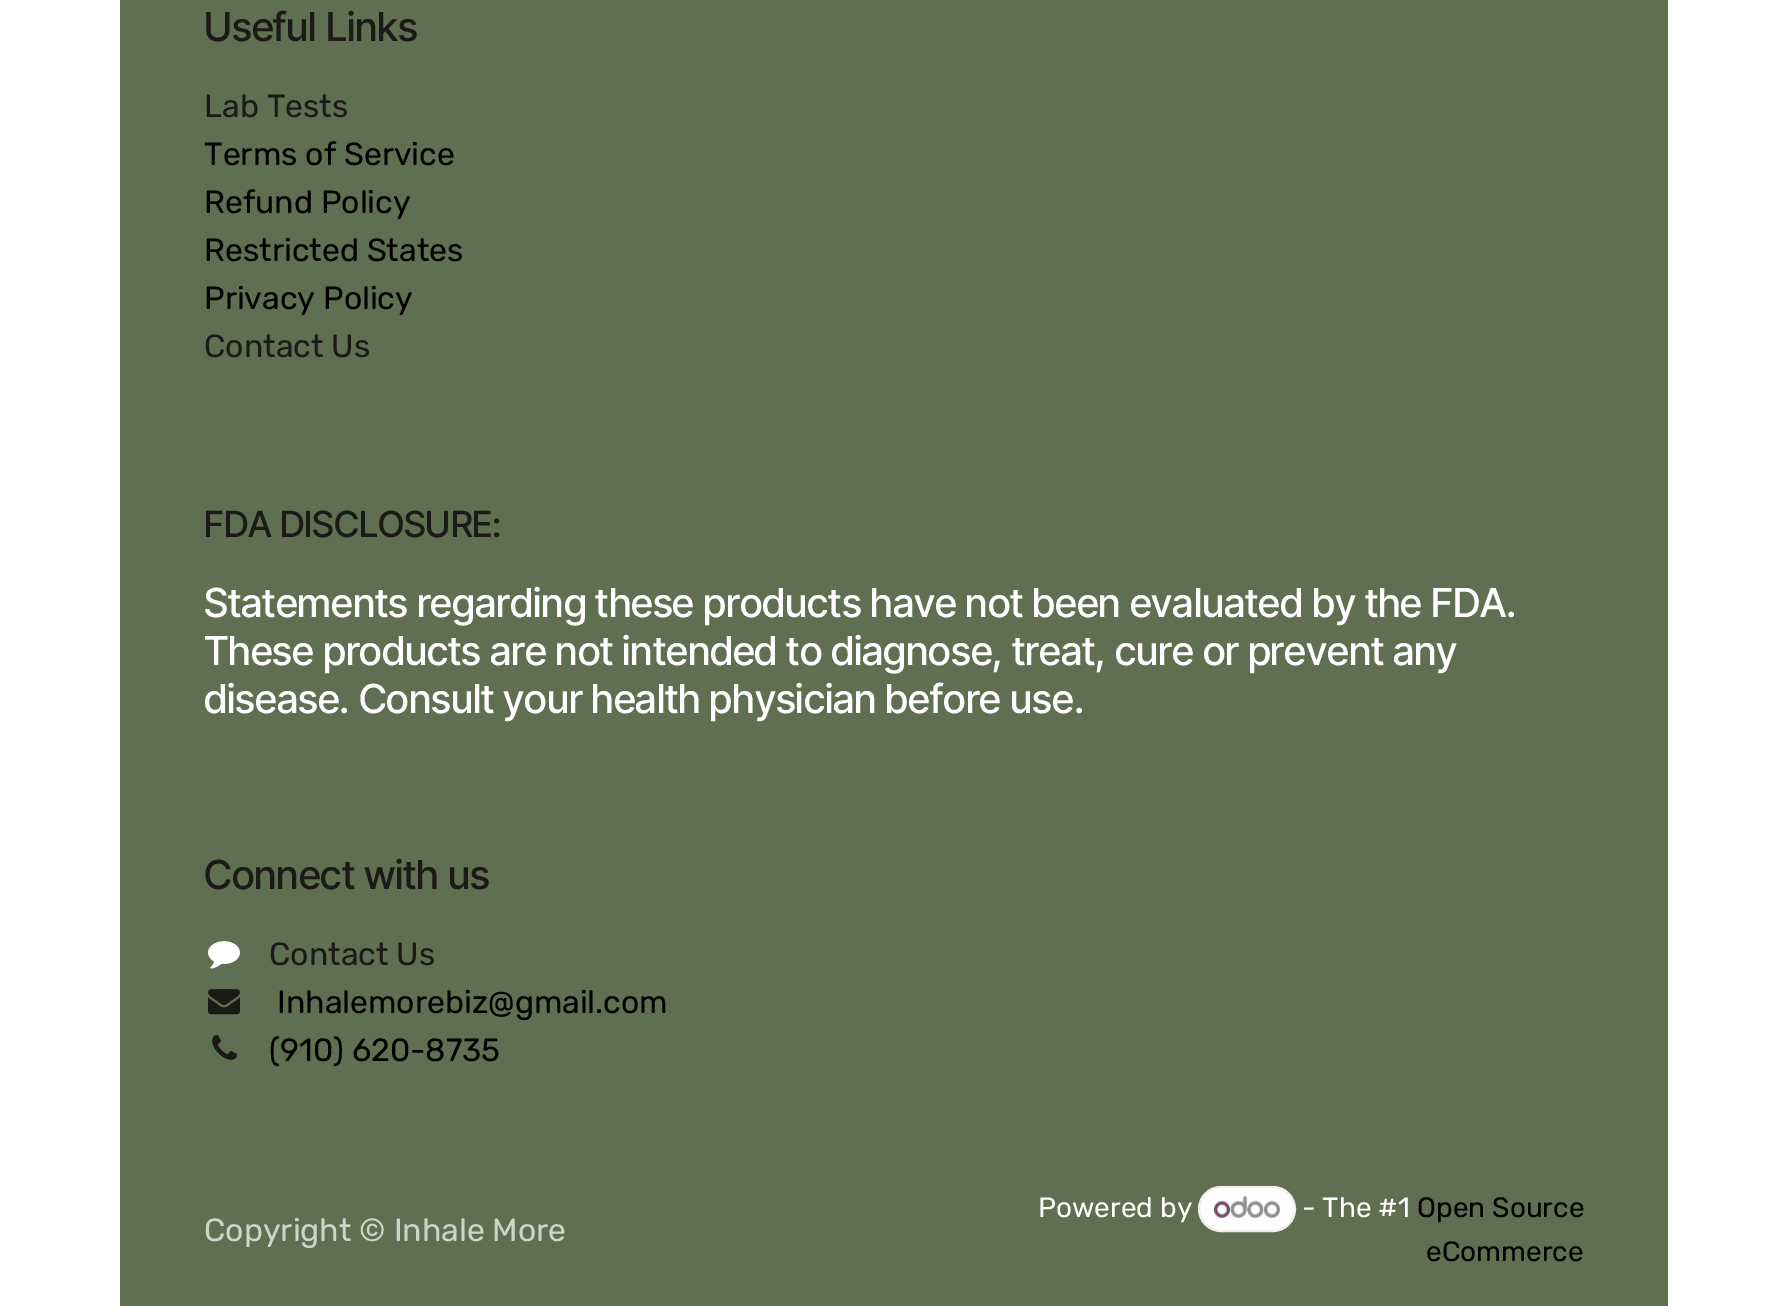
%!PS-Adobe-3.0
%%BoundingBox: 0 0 1787 1306
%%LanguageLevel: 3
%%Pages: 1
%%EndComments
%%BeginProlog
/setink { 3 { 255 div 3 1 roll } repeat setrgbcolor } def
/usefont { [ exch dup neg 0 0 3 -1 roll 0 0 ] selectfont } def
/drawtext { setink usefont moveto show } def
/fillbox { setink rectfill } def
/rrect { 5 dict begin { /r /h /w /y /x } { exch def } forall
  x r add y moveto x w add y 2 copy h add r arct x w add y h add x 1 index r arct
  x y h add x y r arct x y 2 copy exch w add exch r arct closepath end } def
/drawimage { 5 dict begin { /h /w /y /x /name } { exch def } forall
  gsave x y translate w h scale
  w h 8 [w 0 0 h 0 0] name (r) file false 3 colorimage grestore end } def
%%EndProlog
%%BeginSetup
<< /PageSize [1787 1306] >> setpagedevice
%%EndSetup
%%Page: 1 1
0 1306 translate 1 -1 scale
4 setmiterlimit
0 0 1787 1306 255 255 255 fillbox
120 0 1548 1306 95 111 82 fillbox
(Useful Links) 204 41 /InterTight-Medium 40 28 26 23 drawtext
(Lab Tests) 204 117 /Rubik-Regular 32 28 26 23 drawtext
(Terms of Service) 204 165 /Rubik-Regular 32 0 0 0 drawtext
(Refund Policy) 204 213 /Rubik-Regular 32 0 0 0 drawtext
(Restricted States) 204 261 /Rubik-Regular 32 0 0 0 drawtext
(Privacy Policy) 204 309 /Rubik-Regular 32 0 0 0 drawtext
(Contact Us) 204 357 /Rubik-Regular 32 28 26 23 drawtext
(FDA DISCLOSURE:) 204 537 /InterTight-Medium 36 28 26 23 drawtext
(Statements regarding these products have not been evaluated by the FDA.) 204 617 /InterTight-Medium 40 255 255 255 drawtext
(These products are not intended to diagnose, treat, cure or prevent any) 204 665 /InterTight-Medium 40 255 255 255 drawtext
(disease. Consult your health physician before use.) 204 713 /InterTight-Medium 40 255 255 255 drawtext
(Connect with us) 204 889 /InterTight-Medium 40 28 26 23 drawtext
(assets/img1.rgb) 208 941 32 28 drawimage
(Contact Us) 269 965 /Rubik-Regular 32 28 26 23 drawtext
(assets/img2.rgb) 208 989 32 26 drawimage
(Inhalemorebiz@gmail.com) 277 1013 /Rubik-Regular 32 0 0 0 drawtext
(assets/img3.rgb) 212 1034 26 26 drawimage
(\(910\) 620-8735) 269 1061 /Rubik-Regular 32 0 0 0 drawtext
(Copyright © Inhale More) 204 1241 /Rubik-Regular 32 207 212 203 drawtext
(Powered by) 1038 1217 /Rubik-Regular 28 255 255 255 drawtext
254 253 253 setink
1199 1187 96 44 22 rrect gsave fill grestore
241 239 231 setink
2 setlinewidth
stroke
(assets/img4.rgb) 1214 1196 66 22 drawimage
(- The #1) 1302 1217 /Rubik-Regular 28 255 255 255 drawtext
(Open Source) 1417 1217 /Rubik-Regular 28 0 0 0 drawtext
(eCommerce) 1426 1261 /Rubik-Regular 28 0 0 0 drawtext
showpage
%%EOF
